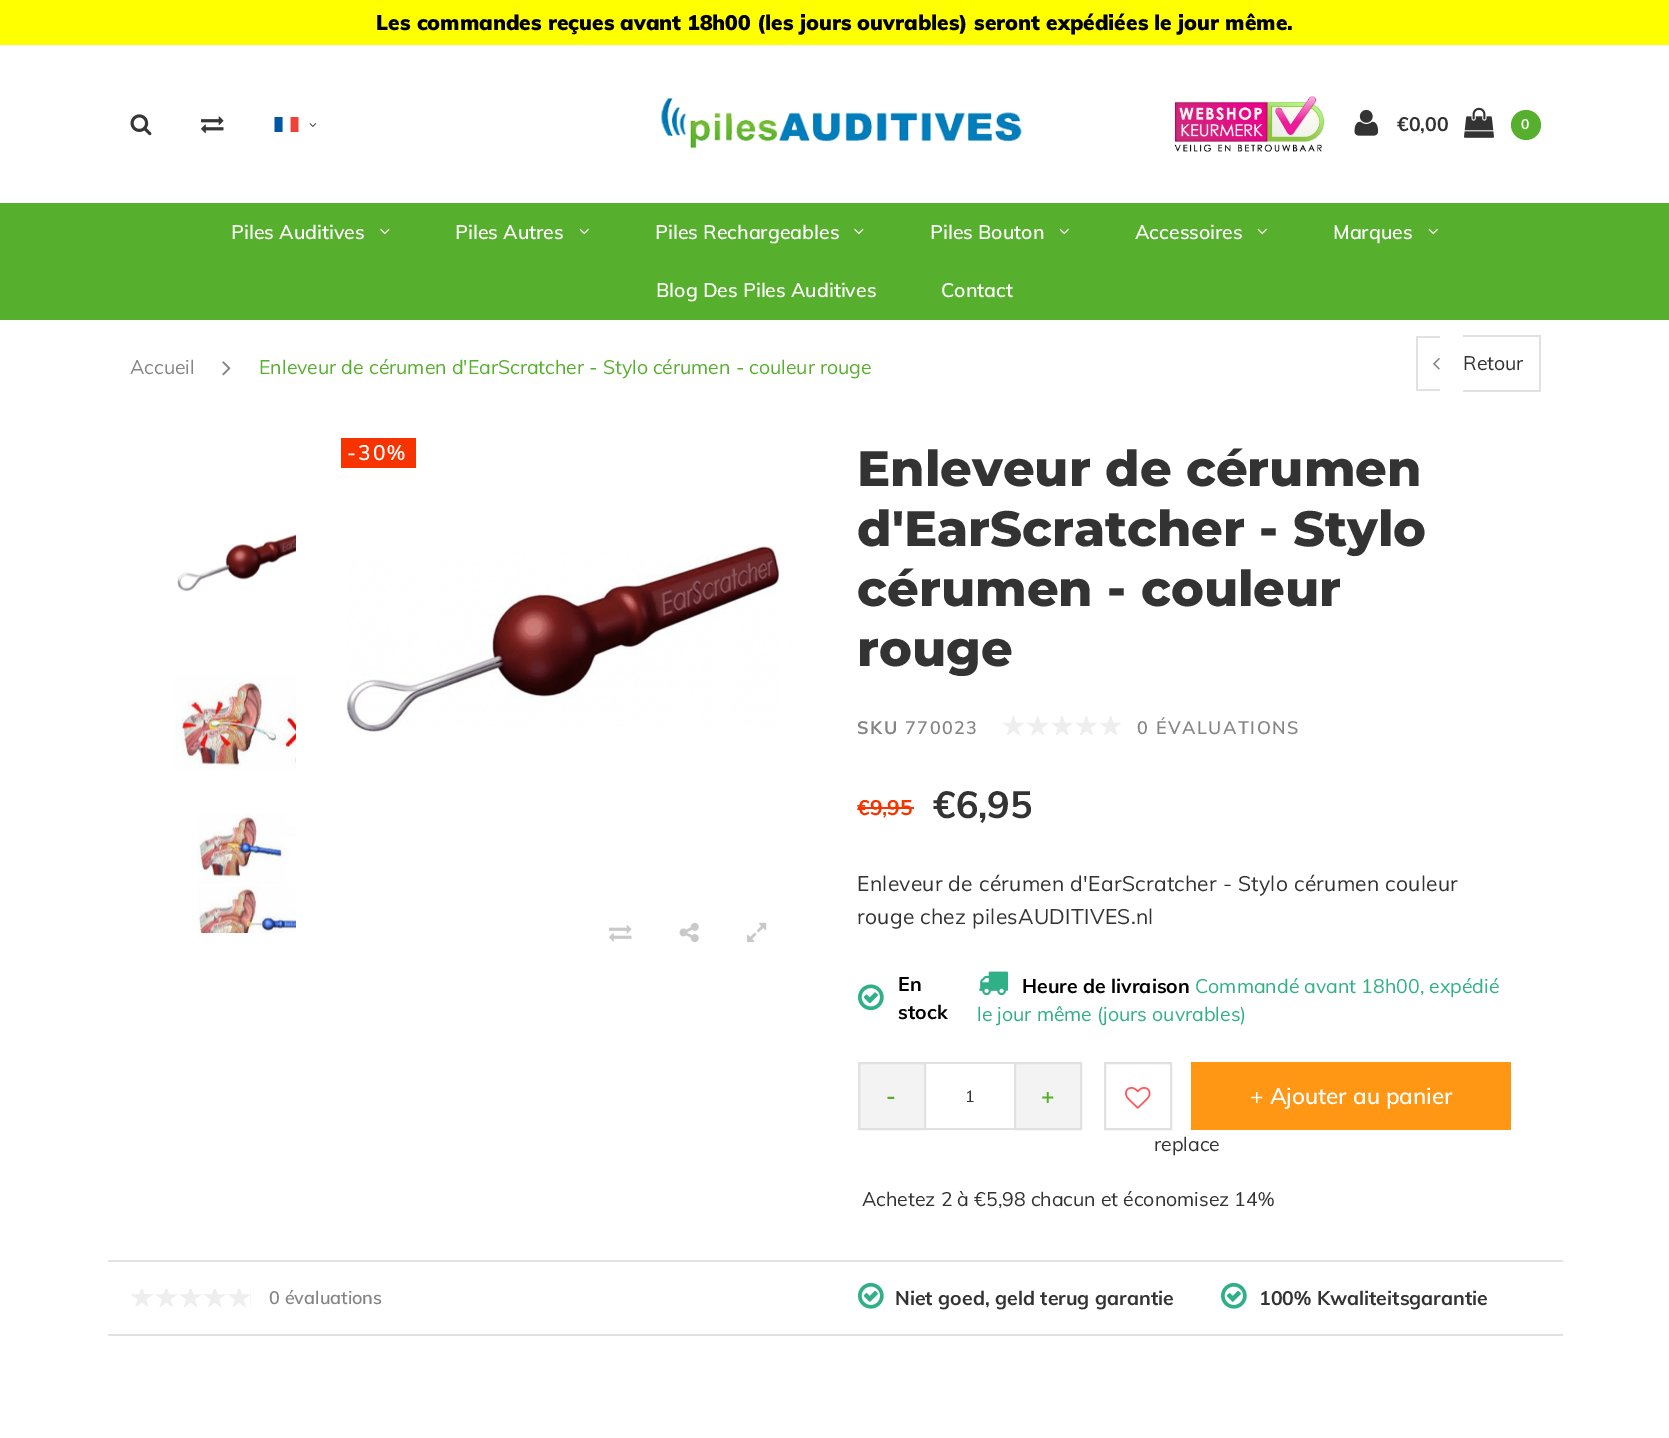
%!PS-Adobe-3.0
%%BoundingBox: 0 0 1669 1438
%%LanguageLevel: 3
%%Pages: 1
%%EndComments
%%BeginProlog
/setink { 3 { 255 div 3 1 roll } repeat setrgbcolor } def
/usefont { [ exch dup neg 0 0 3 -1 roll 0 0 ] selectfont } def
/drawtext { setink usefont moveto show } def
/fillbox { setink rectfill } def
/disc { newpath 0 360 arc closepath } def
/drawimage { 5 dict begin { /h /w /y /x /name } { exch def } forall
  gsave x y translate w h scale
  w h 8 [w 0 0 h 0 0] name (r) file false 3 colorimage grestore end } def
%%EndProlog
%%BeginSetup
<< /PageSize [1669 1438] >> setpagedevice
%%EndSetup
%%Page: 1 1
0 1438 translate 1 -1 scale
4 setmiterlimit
0 0 1669 1438 255 255 255 fillbox
0 0 1669 45 255 255 0 fillbox
(Les commandes reçues avant 18h00 \(les jours ouvrables\) seront expédiées le jour même.) 376 30 /Muli-Black 21 0 0 0 drawtext
(assets/img1.rgb) 130 114 22 22 drawimage
(assets/img2.rgb) 201 116 23 18 drawimage
(assets/img3.rgb) 274 117 25 15 drawimage
(assets/img4.rgb) 309 123 8 4 drawimage
(assets/img5.rgb) 661 98 361 51 drawimage
(assets/img6.rgb) 1174 96 151 56 drawimage
(assets/img7.rgb) 1354 109 25 27 drawimage
(€0,00) 1397 131 /Muli-Bold 19.5 51 51 51 drawtext
(assets/img8.rgb) 1464 107 30 31 drawimage
87 176 45 setink
1526 125 15 disc fill
(0) 1521 129 /Muli-Bold 14 255 255 255 drawtext
0 203 1669 117 87 176 45 fillbox
(Piles Auditives) 231 239 /Muli-SemiBold 19.5 255 255 255 drawtext
(assets/img9.rgb) 380 228 10 7 drawimage
(Piles Autres) 455 239 /Muli-SemiBold 19.5 255 255 255 drawtext
(assets/img10.rgb) 579 228 10 7 drawimage
(Piles Rechargeables) 655 239 /Muli-SemiBold 19.5 255 255 255 drawtext
(assets/img9.rgb) 854 228 10 7 drawimage
(Piles Bouton) 930 239 /Muli-SemiBold 19.5 255 255 255 drawtext
(assets/img10.rgb) 1059 228 10 7 drawimage
(Accessoires) 1135 239 /Muli-SemiBold 19.5 255 255 255 drawtext
(assets/img10.rgb) 1257 228 10 7 drawimage
(Marques) 1333 239 /Muli-SemiBold 19.5 255 255 255 drawtext
(assets/img10.rgb) 1428 228 10 7 drawimage
(Blog Des Piles Auditives) 656 297 /Muli-SemiBold 19.5 255 255 255 drawtext
(Contact) 941 297 /Muli-SemiBold 19.5 255 255 255 drawtext
(Accueil) 130 374 /Muli-Regular 19.5 133 133 133 drawtext
(assets/img11.rgb) 222 361 9 15 drawimage
(Enleveur de cérumen d'EarScratcher - Stylo cérumen - couleur rouge) 259 374 /Muli-Regular 19.5 87 176 45 drawtext
1416 336 24 2 225 225 225 fillbox
1416 389 24 2 225 225 225 fillbox
1416 336 2 54 225 225 225 fillbox
1463 335 78 2 225 225 225 fillbox
1539 335 2 57 225 225 225 fillbox
1463 390 78 2 225 225 225 fillbox
(assets/img12.rgb) 1433 358 7 12 drawimage
(Retour) 1463 370 /Muli-Regular 19.5 51 51 51 drawtext
341 438 75 30 247 52 0 fillbox
/Muli-SemiBold 21 usefont
255 255 255 setink
347 460 moveto 2 0 (-30%) ashow
(assets/img13.rgb) 346 546 434 186 drawimage
(assets/img14.rgb) 609 925 23 17 drawimage
(assets/img15.rgb) 679 922 20 20 drawimage
(assets/img16.rgb) 747 922 20 21 drawimage
(assets/img17.rgb) 790 638 1 14 drawimage
(assets/img18.rgb) 177 534 119 58 drawimage
(assets/img19.rgb) 175 676 121 94 drawimage
(assets/img20.rgb) 197 813 99 120 drawimage
(Enleveur de cérumen) 857 486 /Montserrat-ExtraBold 49.5 51 51 51 drawtext
(d'EarScratcher - Stylo) 857 546 /Montserrat-ExtraBold 49.5 51 51 51 drawtext
(cérumen - couleur) 857 606 /Montserrat-ExtraBold 49.5 51 51 51 drawtext
(rouge) 857 666 /Montserrat-ExtraBold 49.5 51 51 51 drawtext
/Muli-Bold 18 usefont
133 133 133 setink
857 734 moveto 1.5 0 (SKU) ashow
/Muli-SemiBold 18 usefont
905 734 moveto 1.5 0 (770023) ashow
1002 716 120 19 238 238 238 fillbox
(assets/img21.rgb) 1002 716 120 19 drawimage
133 133 133 setink
1137 734 moveto 1.5 0 (0 ÉVALUATIONS) ashow
(€9,95) 857 815 /Muli-Bold 21 247 52 0 drawtext
858 807 56 2 247 52 0 fillbox
(€6,95) 933 818 /Muli-Bold 37.5 51 51 51 drawtext
/Muli-Regular 21 usefont
857 891 moveto 0.3 0 (Enleveur de cérumen d'EarScratcher - Stylo cérumen couleur) ashow
857 924 moveto 0.3 0 (rouge chez pilesAUDITIVES.nl) ashow
(assets/img22.rgb) 858 984 26 27 drawimage
(En) 898 991 /Muli-Bold 19.5 0 0 0 drawtext
(stock) 898 1019 /Muli-Bold 19.5 0 0 0 drawtext
(assets/img23.rgb) 979 971 29 25 drawimage
(Heure de livraison) 1022 993 /Muli-Bold 19.5 0 0 0 drawtext
(Commandé avant 18h00, expédié) 1195 993 /Muli-Regular 19.5 48 176 135 drawtext
(le jour même \(jours ouvrables\)) 977 1021 /Muli-Regular 19.5 48 176 135 drawtext
243 243 243 setink
859 1063 moveto 925 1063 lineto 925 1129 lineto 859 1129 lineto closepath gsave fill grestore
225 225 225 setink
2 setlinewidth
stroke
(-) 886 1104 /Muli-Bold 22.5 87 176 45 drawtext
926 1062 90 2 225 225 225 fillbox
926 1128 90 2 225 225 225 fillbox
(1) 965 1102 /Muli-Regular 16 51 51 51 drawtext
243 243 243 setink
1015 1063 moveto 1081 1063 lineto 1081 1129 lineto 1015 1129 lineto closepath gsave fill grestore
225 225 225 setink
stroke
(+) 1041 1104 /Muli-Bold 22.5 87 176 45 drawtext
225 225 225 setink
1105 1063 66 66 rectstroke
(assets/img24.rgb) 1125 1087 26 22 drawimage
1191 1062 320 68 255 151 21 fillbox
(+ Ajouter au panier) 1250 1104 /Muli-SemiBold 22.5 255 255 255 drawtext
(replace) 1154 1151 /Muli-Regular 19.5 51 51 51 drawtext
(Achetez 2 à €5,98 chacun et économisez 14%) 862 1206 /Muli-Regular 19.5 51 51 51 drawtext
108 1260 1455 2 226 226 226 fillbox
108 1334 1455 2 226 226 226 fillbox
131 1289 120 18 238 238 238 fillbox
(assets/img25.rgb) 131 1289 120 18 drawimage
(0 évaluations) 269 1304 /Muli-SemiBold 18 133 133 133 drawtext
(assets/img26.rgb) 858 1282 26 27 drawimage
(Niet goed, geld terug garantie) 895 1305 /Muli-Bold 19.5 51 51 51 drawtext
(assets/img26.rgb) 1221 1282 26 27 drawimage
(100% Kwaliteitsgarantie) 1259 1305 /Muli-Bold 19.5 51 51 51 drawtext
showpage
%%EOF
